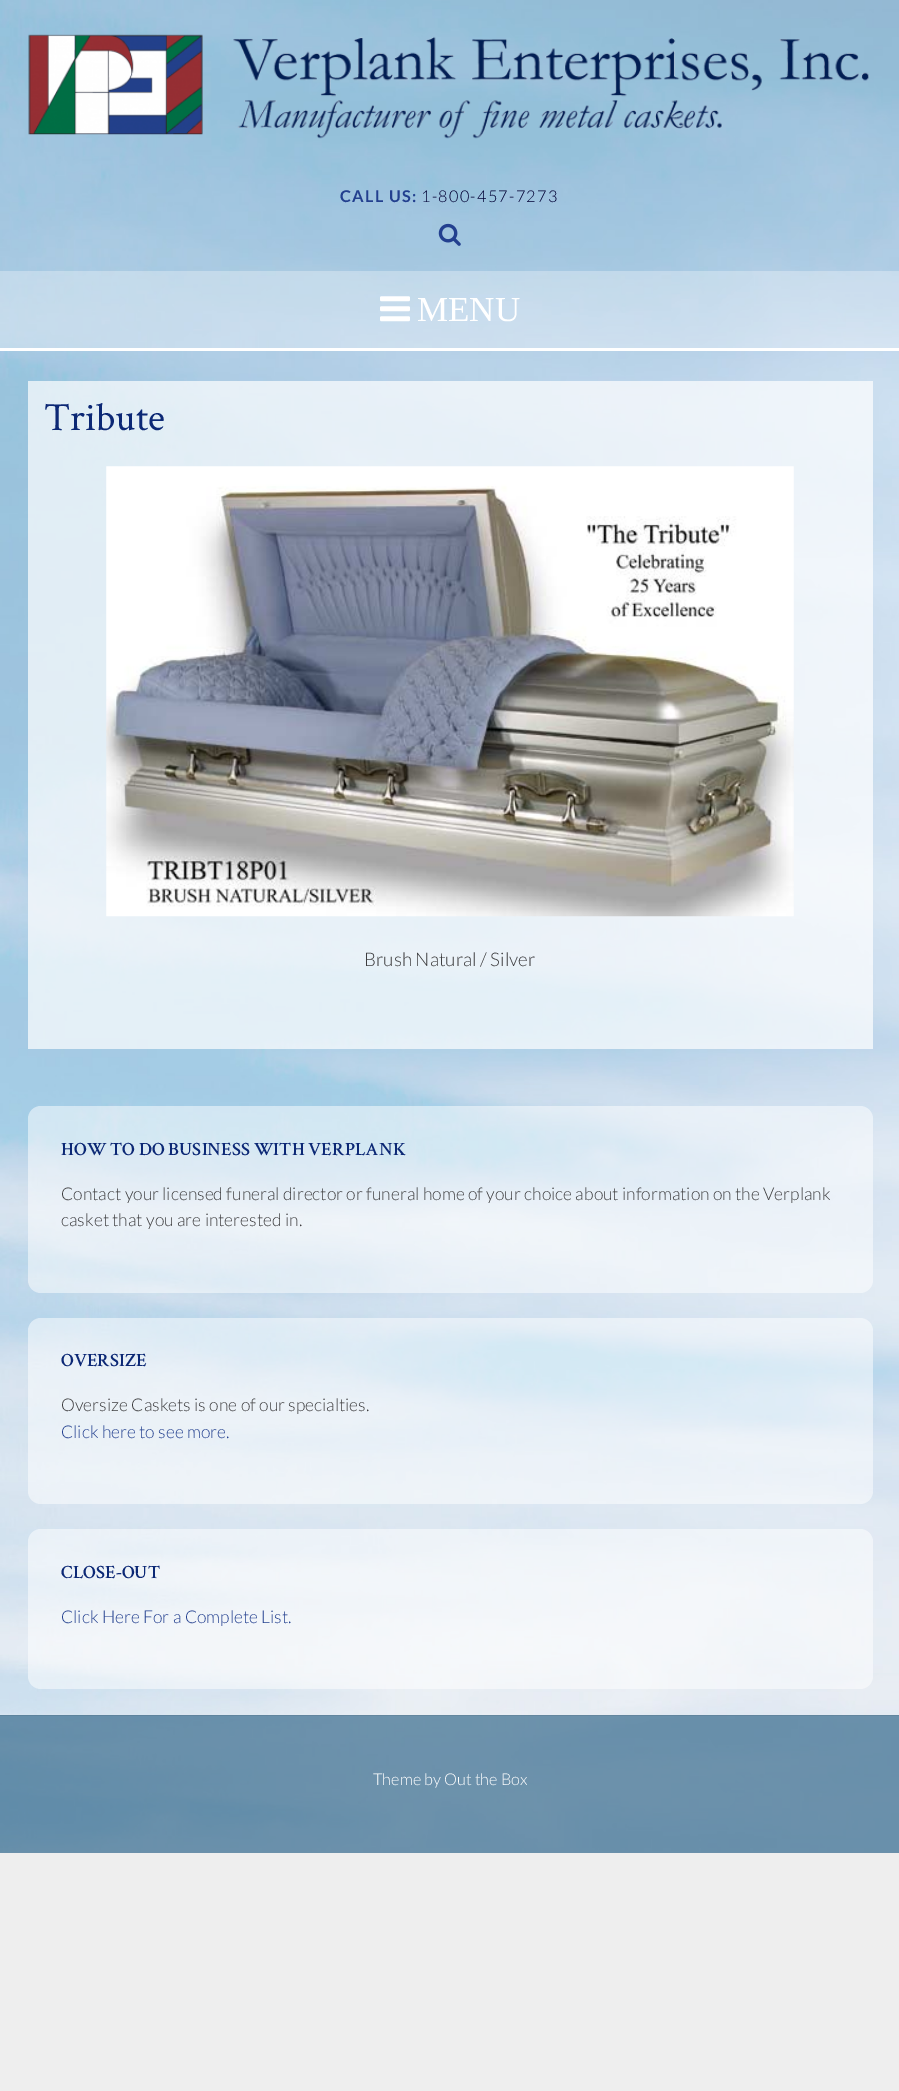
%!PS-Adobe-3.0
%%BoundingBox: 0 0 899 2091
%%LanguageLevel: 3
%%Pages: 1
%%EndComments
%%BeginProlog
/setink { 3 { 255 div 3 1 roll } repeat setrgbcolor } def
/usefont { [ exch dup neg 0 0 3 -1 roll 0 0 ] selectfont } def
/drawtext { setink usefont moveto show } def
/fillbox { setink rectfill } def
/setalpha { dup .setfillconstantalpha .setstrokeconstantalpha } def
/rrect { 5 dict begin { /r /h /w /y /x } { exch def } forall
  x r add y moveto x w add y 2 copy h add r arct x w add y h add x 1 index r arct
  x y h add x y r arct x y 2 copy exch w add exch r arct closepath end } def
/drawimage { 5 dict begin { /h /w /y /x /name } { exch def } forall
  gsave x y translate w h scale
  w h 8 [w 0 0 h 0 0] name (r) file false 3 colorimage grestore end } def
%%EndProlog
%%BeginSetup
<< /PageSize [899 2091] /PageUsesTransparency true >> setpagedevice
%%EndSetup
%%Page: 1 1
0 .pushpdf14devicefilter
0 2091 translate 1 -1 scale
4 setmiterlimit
0 0 899 2091 238 238 238 fillbox
(assets/img1.rgb) 0 0 899 1853 drawimage
(assets/img2.rgb) 28 34 842 105 drawimage
/Lato-Bold 16.25 usefont
35 64 143 setink
340 202 moveto 1.25 0 (CALL US:) ashow
/Lato-Light 16.25 usefont
0 0 51 setink
421 202 moveto 1.25 0 (1-800-457-7273) ashow
(assets/img3.rgb) 438 223 23 23 drawimage
0.3 setalpha
0 271 899 77 255 255 255 fillbox
1 setalpha
0 348 899 3 255 255 255 fillbox
(assets/img4.rgb) 380 296 30 26 drawimage
(MENU) 417 321 /LiberationSerif-Regular 35 255 255 255 drawtext
0.7 setalpha
28 381 845 668 255 255 255 fillbox
1 setalpha
(Tribute) 44 430 /CrimsonText-Regular 40 12 40 117 drawtext
(assets/img5.rgb) 106 466 688 451 drawimage
(Brush Natural / Silver) 364 966 /Lato-Light 18.75 61 61 63 drawtext
0.5 setalpha
255 255 255 setink
28 1106 845 187 13 rrect fill
1 setalpha
(HOW TO DO BUSINESS WITH VERPLANK) 61 1155 /CrimsonText-SemiBold 18.75 12 40 117 drawtext
(Contact your licensed funeral director or funeral home of your choice about information on the Verplank) 61 1200 /Lato-Light 17.5 61 61 63 drawtext
(casket that you are interested in.) 61 1226 /Lato-Light 17.5 61 61 63 drawtext
0.5 setalpha
255 255 255 setink
28 1318 845 186 13 rrect fill
1 setalpha
(OVERSIZE) 61 1366 /CrimsonText-SemiBold 18.75 12 40 117 drawtext
(Oversize Caskets is one of our specialties.) 61 1411 /Lato-Light 17.5 61 61 63 drawtext
(Click here to see more.) 61 1438 /Lato-Light 17.5 35 64 143 drawtext
0.5 setalpha
255 255 255 setink
28 1529 845 160 13 rrect fill
1 setalpha
(CLOSE-OUT) 61 1578 /CrimsonText-SemiBold 18.75 12 40 117 drawtext
(Click Here For a Complete List.) 61 1623 /Lato-Light 17.5 35 64 143 drawtext
0.6 setalpha
0 1715 899 138 25 84 123 fillbox
0.08 setalpha
0 1715 899 1 0 0 0 fillbox
1 setalpha
(Theme by Out the Box) 373 1785 /Lato-Light 16.25 255 255 255 drawtext
.poppdf14devicefilter showpage
%%EOF
